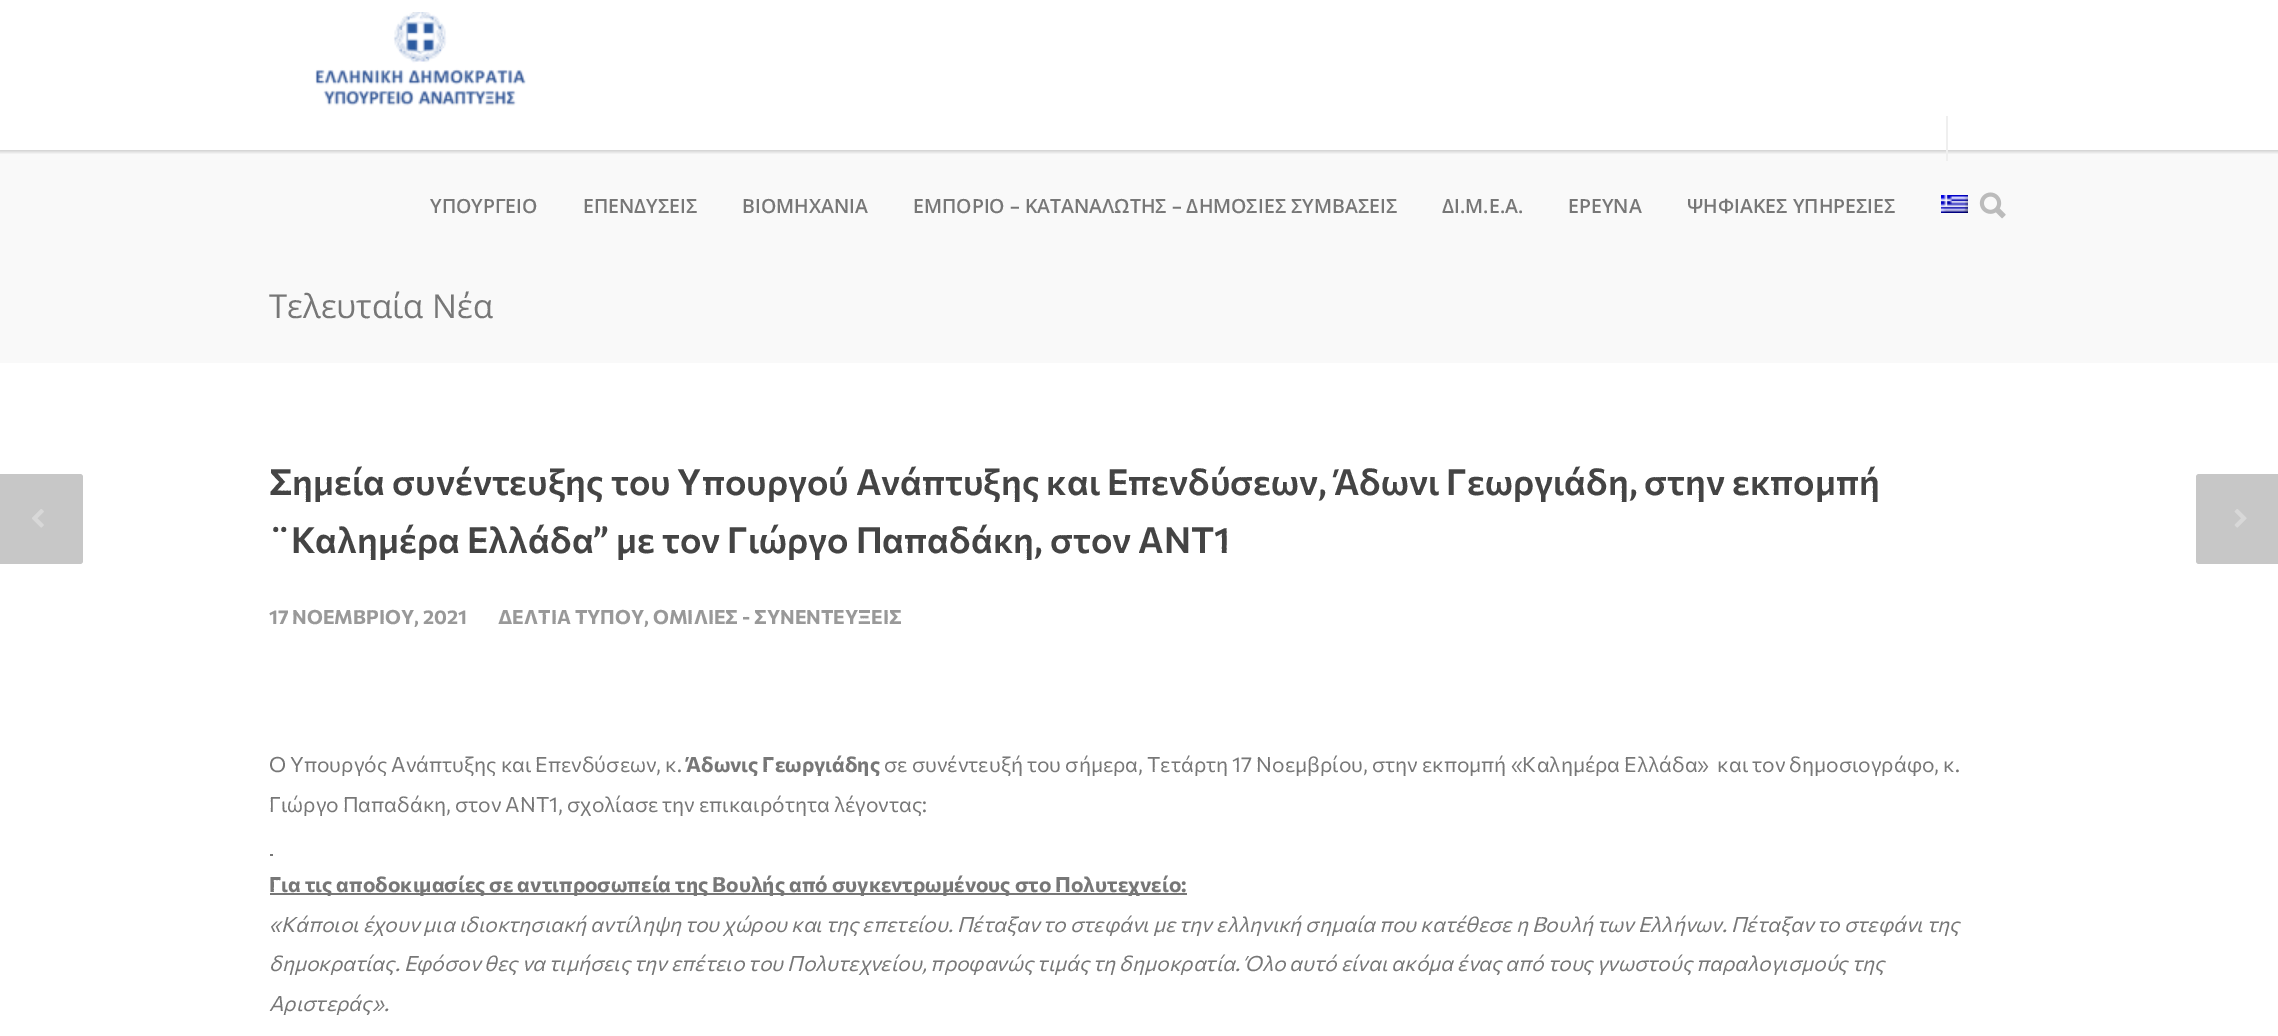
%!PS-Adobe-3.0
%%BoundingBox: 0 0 2278 1036
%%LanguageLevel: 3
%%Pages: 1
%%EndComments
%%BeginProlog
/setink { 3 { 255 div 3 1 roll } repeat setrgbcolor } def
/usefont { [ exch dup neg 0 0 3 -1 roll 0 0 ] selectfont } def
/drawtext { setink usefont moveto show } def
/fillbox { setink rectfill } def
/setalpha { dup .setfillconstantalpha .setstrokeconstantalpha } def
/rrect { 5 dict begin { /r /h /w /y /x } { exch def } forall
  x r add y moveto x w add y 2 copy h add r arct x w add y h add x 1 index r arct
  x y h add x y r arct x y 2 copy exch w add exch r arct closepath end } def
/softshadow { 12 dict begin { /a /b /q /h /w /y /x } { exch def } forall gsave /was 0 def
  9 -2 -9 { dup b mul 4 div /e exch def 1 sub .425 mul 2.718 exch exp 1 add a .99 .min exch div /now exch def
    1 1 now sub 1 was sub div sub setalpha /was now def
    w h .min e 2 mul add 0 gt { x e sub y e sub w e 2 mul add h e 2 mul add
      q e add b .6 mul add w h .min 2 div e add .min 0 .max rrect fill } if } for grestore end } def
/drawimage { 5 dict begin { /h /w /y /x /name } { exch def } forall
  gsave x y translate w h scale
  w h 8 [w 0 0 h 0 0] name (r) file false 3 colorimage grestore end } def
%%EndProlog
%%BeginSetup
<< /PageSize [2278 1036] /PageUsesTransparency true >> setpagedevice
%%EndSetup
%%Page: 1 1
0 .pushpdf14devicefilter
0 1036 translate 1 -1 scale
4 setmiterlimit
0 0 2278 1036 255 255 255 fillbox
0 150 2278 213 249 249 249 fillbox
gsave
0 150 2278 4 rectclip
0 0 0 setink
-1 -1 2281 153 0 1.5 0.16 softshadow
grestore
(assets/img1.rgb) 315 12 211 94 drawimage
(ΥΠΟΥΡΓΕΙΟ) 430 213 /OpenSans-SemiBold 19.5 119 119 119 drawtext
(ΕΠΕΝΔΥΣΕΙΣ) 583 213 /OpenSans-SemiBold 19.5 119 119 119 drawtext
(ΒΙΟΜΗΧΑΝΙΑ) 742 213 /OpenSans-SemiBold 19.5 119 119 119 drawtext
(ΕΜΠΟΡΙΟ – ΚΑΤΑΝΑΛΩΤΗΣ – ΔΗΜΟΣΙΕΣ ΣΥΜΒΑΣΕΙΣ) 913 213 /OpenSans-SemiBold 19.5 119 119 119 drawtext
(ΔΙ.Μ.Ε.Α.) 1442 213 /OpenSans-SemiBold 19.5 119 119 119 drawtext
(ΕΡΕΥΝΑ) 1568 213 /OpenSans-SemiBold 19.5 119 119 119 drawtext
(ΨΗΦΙΑΚΕΣ ΥΠΗΡΕΣΙΕΣ) 1687 213 /OpenSans-SemiBold 19.5 119 119 119 drawtext
(assets/img2.rgb) 1941 195 27 18 drawimage
1946 116 2 45 239 239 239 fillbox
(assets/img3.rgb) 1979 192 27 27 drawimage
(Τελευταία Νέα) 269 318 /OpenSans-Regular 33 119 119 119 drawtext
(Σημεία συνέντευξης του Υπουργού Ανάπτυξης και Επενδύσεων, Άδωνι Γεωργιάδη, στην εκπομπή) 269 495 /Commissioner-SemiBold 36 68 68 68 drawtext
(¨Καλημέρα Ελλάδα” με τον Γιώργο Παπαδάκη, στον ΑΝΤ1) 269 553 /Commissioner-SemiBold 36 68 68 68 drawtext
(17 ΝΟΕΜΒΡΙΟΥ, 2021) 269 624 /Commissioner-Bold 19.5 153 153 153 drawtext
(ΔΕΛΤΙΑ ΤΥΠΟΥ, ΟΜΙΛΙΕΣ - ΣΥΝΕΝΤΕΥΞΕΙΣ) 498 624 /Commissioner-Bold 19.5 153 153 153 drawtext
(Ο Υπουργός Ανάπτυξης και Επενδύσεων, κ.) 269 772 /Commissioner-Regular 21 119 119 119 drawtext
(Άδωνις Γεωργιάδης) 686 772 /Commissioner-Bold 21 119 119 119 drawtext
(σε συνέντευξή του σήμερα, Τετάρτη 17 Νοεμβρίου, στην εκπομπή «Καλημέρα Ελλάδα»  και τον δημοσιογράφο, κ.) 884 772 /Commissioner-Regular 21 119 119 119 drawtext
(Γιώργο Παπαδάκη, στον ΑΝΤ1, σχολίασε την επικαιρότητα λέγοντας:) 269 812 /Commissioner-Regular 21 119 119 119 drawtext
270 854 3 2 119 119 119 fillbox
270 893 917 2 119 119 119 fillbox
(Για τις αποδοκιμασίες σε αντιπροσωπεία της Βουλής από συγκεντρωμένους στο Πολυτεχνείο:) 269 892 /Commissioner-Bold 21 119 119 119 drawtext
(«Κάποιοι έχουν μια ιδιοκτησιακή αντίληψη του χώρου και της επετείου. Πέταξαν το στεφάνι με την ελληνική σημαία που κατέθεσε η Βουλή των Ελλήνων. Πέταξαν το στεφάνι της) 269 932 /Commissioner-Italic 21 119 119 119 drawtext
(δημοκρατίας. Εφόσον θες να τιμήσεις την επέτειο του Πολυτεχνείου, προφανώς τιμάς τη δημοκρατία. Όλο αυτό είναι ακόμα ένας από τους γνωστούς παραλογισμούς της) 269 971 /Commissioner-Italic 21 119 119 119 drawtext
(Αριστεράς».) 269 1011 /Commissioner-Italic 21 119 119 119 drawtext
199 199 199 setink
-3 474 moveto 80 474 lineto 81.5 474 83 475.5 83 477 curveto 83 561 lineto 83 562.5 81.5 564 80 564 curveto -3 564 lineto closepath fill
(assets/img4.rgb) 32 509 12 19 drawimage
2199 474 moveto 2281 474 lineto 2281 564 lineto 2199 564 lineto 2197.5 564 2196 562.5 2196 561 curveto 2196 477 lineto 2196 475.5 2197.5 474 2199 474 curveto closepath fill
(assets/img5.rgb) 2234 509 13 19 drawimage
.poppdf14devicefilter showpage
%%EOF
